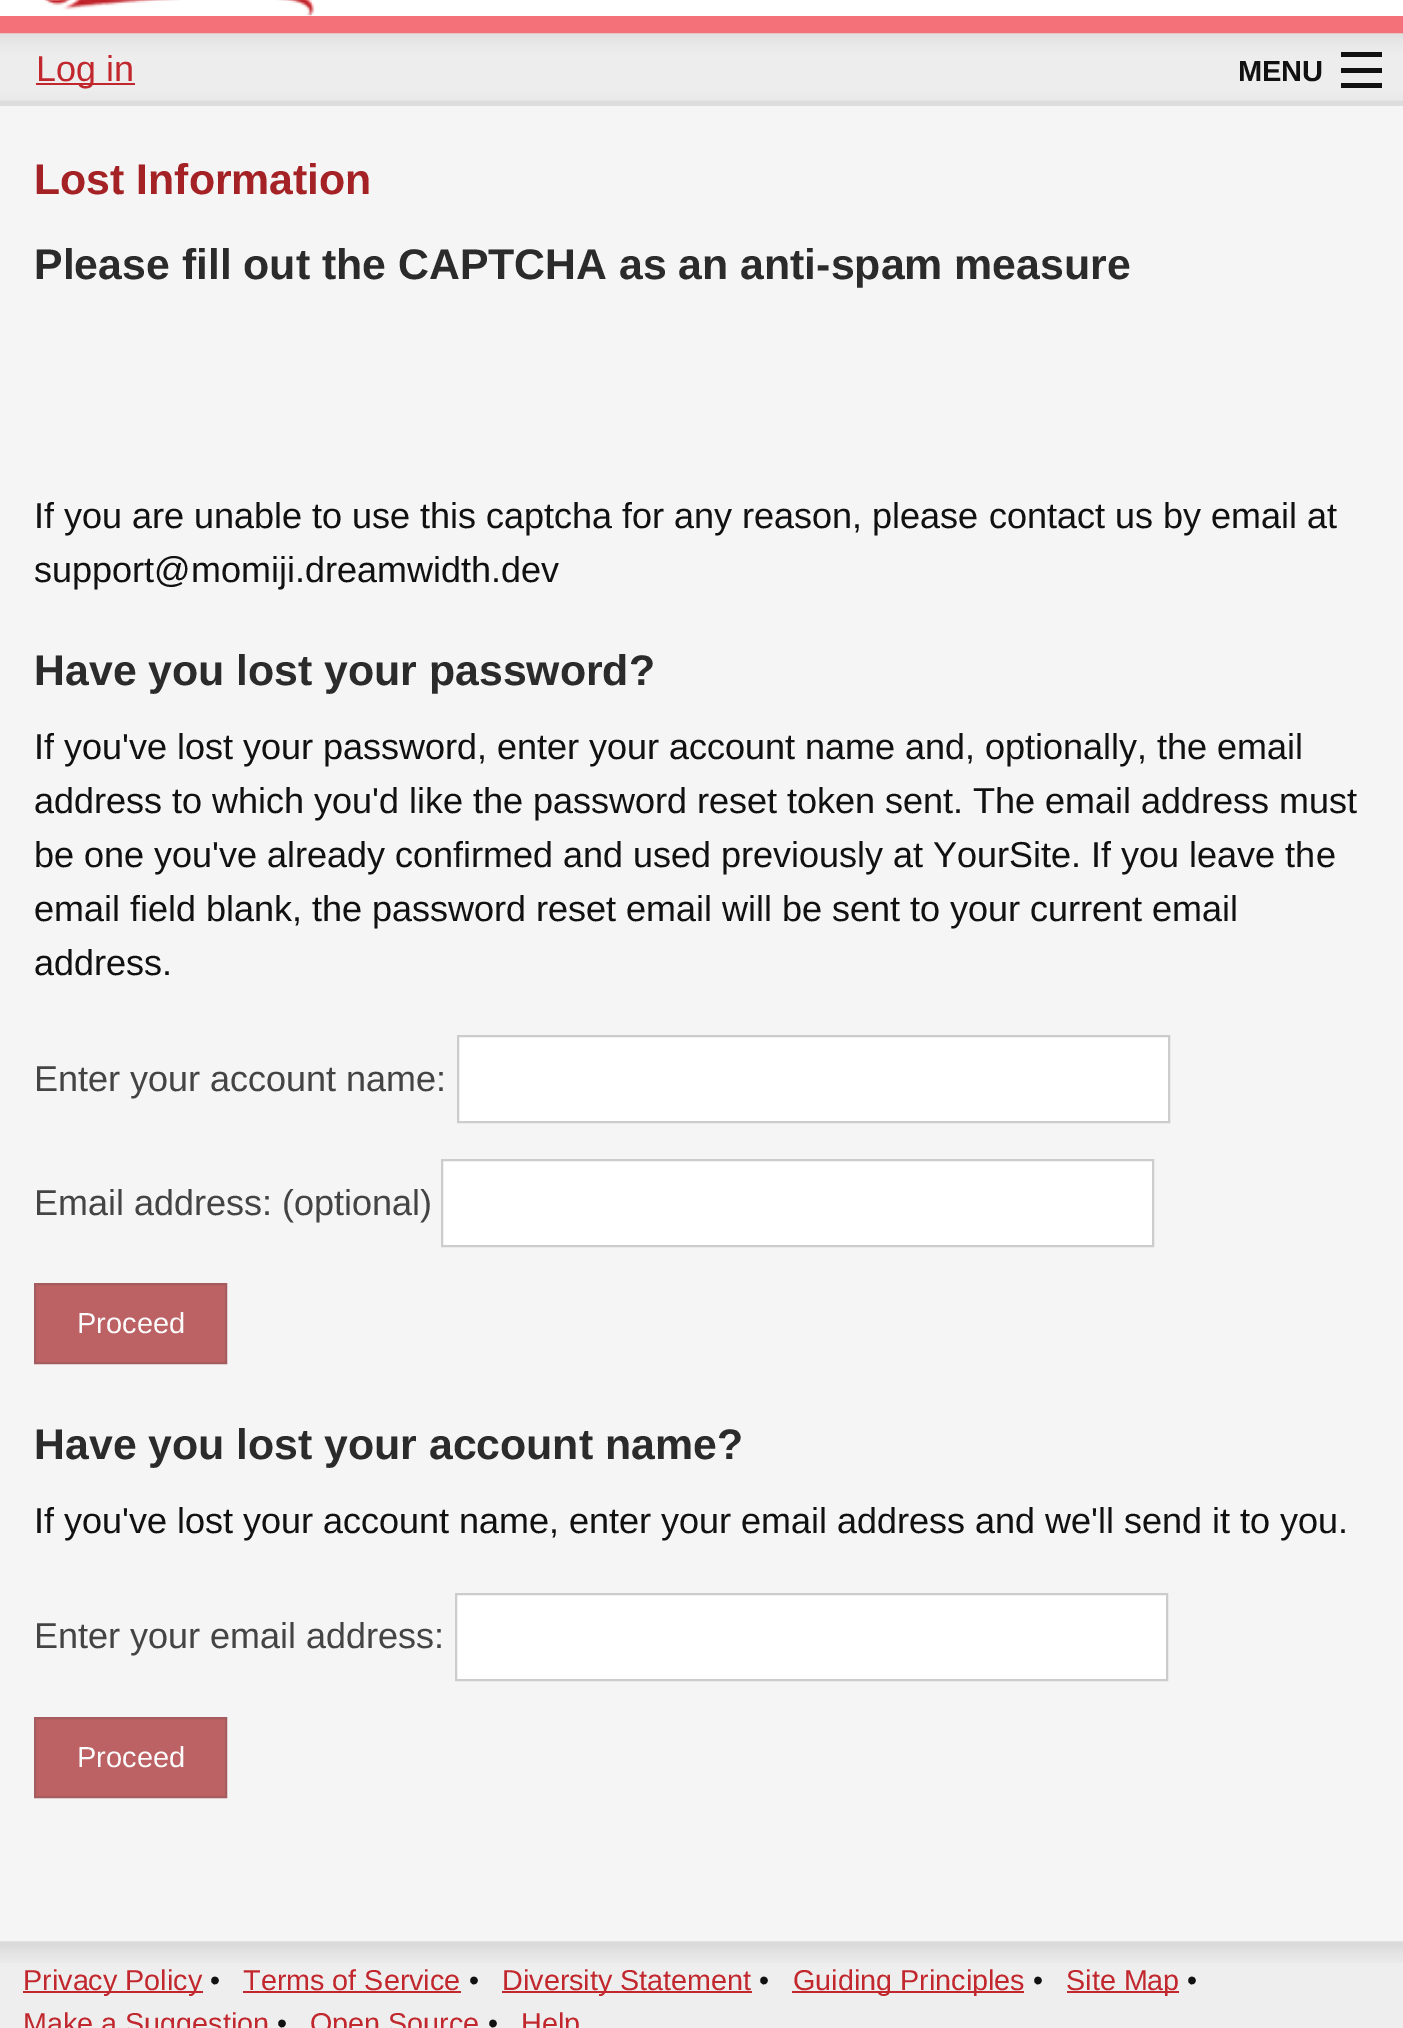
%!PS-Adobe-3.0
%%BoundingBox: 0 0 1403 2028
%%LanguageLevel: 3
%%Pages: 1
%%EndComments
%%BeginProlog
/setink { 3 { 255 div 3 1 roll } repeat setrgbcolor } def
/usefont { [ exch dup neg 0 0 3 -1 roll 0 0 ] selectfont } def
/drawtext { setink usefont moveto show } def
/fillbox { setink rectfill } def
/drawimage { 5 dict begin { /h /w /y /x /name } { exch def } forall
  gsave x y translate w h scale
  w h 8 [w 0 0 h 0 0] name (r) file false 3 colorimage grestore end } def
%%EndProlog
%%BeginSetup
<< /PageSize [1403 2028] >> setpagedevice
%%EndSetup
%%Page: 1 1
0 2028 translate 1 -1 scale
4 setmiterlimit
0 0 1403 2028 245 245 245 fillbox
0 0 1403 16 255 255 255 fillbox
0 16 1403 18 244 113 122 fillbox
(assets/img1.rgb) 44 0 271 16 drawimage
0 100 1403 6 221 221 221 fillbox
(assets/img2.rgb) 0 33 1403 68 drawimage
36 83 99 2 193 39 45 fillbox
(Log in) 36 81 /LiberationSans-Regular 36 193 39 45 drawtext
(MENU) 1238 81 /LiberationSans-Bold 29 17 17 17 drawtext
1341 83 41 5 17 17 17 fillbox
1341 68 41 5 17 17 17 fillbox
1341 52 41 5 17 17 17 fillbox
(Lost Information) 34 194 /LiberationSans-Bold 42.8 164 34 38 drawtext
(Please fill out the CAPTCHA as an anti-spam measure) 34 279 /LiberationSans-Bold 42.8 43 43 43 drawtext
(If you are unable to use this captcha for any reason, please contact us by email at) 34 528 /LiberationSans-Regular 36 17 17 17 drawtext
(support@momiji.dreamwidth.dev) 34 582 /LiberationSans-Regular 36 17 17 17 drawtext
(Have you lost your password?) 34 685 /LiberationSans-Bold 42.8 43 43 43 drawtext
(If you've lost your password, enter your account name and, optionally, the email) 34 759 /LiberationSans-Regular 36 17 17 17 drawtext
(address to which you'd like the password reset token sent. The email address must) 34 813 /LiberationSans-Regular 36 17 17 17 drawtext
(be one you've already confirmed and used previously at YourSite. If you leave the) 34 867 /LiberationSans-Regular 36 17 17 17 drawtext
(email field blank, the password reset email will be sent to your current email) 34 921 /LiberationSans-Regular 36 17 17 17 drawtext
(address.) 34 975 /LiberationSans-Regular 36 17 17 17 drawtext
(Enter your account name:) 34 1091 /LiberationSans-Regular 36 68 68 68 drawtext
255 255 255 setink
458 1036 moveto 1169 1036 lineto 1169 1122 lineto 458 1122 lineto closepath gsave fill grestore
204 204 204 setink
2 setlinewidth
stroke
(Email address: \(optional\)) 34 1215 /LiberationSans-Regular 36 68 68 68 drawtext
255 255 255 setink
442 1160 moveto 1153 1160 lineto 1153 1246 lineto 442 1246 lineto closepath gsave fill grestore
204 204 204 setink
stroke
188 97 100 setink
35 1284 moveto 226 1284 lineto 226 1363 lineto 35 1363 lineto closepath gsave fill grestore
165 92 95 setink
stroke
(Proceed) 77 1333 /LiberationSans-Regular 29 252 252 252 drawtext
(Have you lost your account name?) 34 1459 /LiberationSans-Bold 42.8 43 43 43 drawtext
(If you've lost your account name, enter your email address and we'll send it to you.) 34 1533 /LiberationSans-Regular 36 17 17 17 drawtext
(Enter your email address:) 34 1648 /LiberationSans-Regular 36 68 68 68 drawtext
255 255 255 setink
456 1594 moveto 1167 1594 lineto 1167 1680 lineto 456 1680 lineto closepath gsave fill grestore
204 204 204 setink
stroke
188 97 100 setink
35 1718 moveto 226 1718 lineto 226 1797 lineto 35 1797 lineto closepath gsave fill grestore
165 92 95 setink
stroke
(Proceed) 77 1767 /LiberationSans-Regular 29 252 252 252 drawtext
0 1963 1403 65 238 238 238 fillbox
(assets/img3.rgb) 0 1941 1403 22 drawimage
23 1991 180 2 193 39 45 fillbox
(Privacy Policy) 23 1990 /LiberationSans-Regular 28.75 193 39 45 drawtext
(•) 210 1990 /LiberationSans-Regular 28.75 17 17 17 drawtext
(Terms of Service) 243 1990 /LiberationSans-Regular 28.75 193 39 45 drawtext
243 1991 218 2 193 39 45 fillbox
(•) 469 1990 /LiberationSans-Regular 28.75 17 17 17 drawtext
502 1991 250 2 193 39 45 fillbox
(Diversity Statement) 502 1990 /LiberationSans-Regular 28.75 193 39 45 drawtext
(•) 759 1990 /LiberationSans-Regular 28.75 17 17 17 drawtext
792 1991 232 2 193 39 45 fillbox
(Guiding Principles) 793 1990 /LiberationSans-Regular 28.75 193 39 45 drawtext
(•) 1033 1990 /LiberationSans-Regular 28.75 17 17 17 drawtext
1067 1991 112 2 193 39 45 fillbox
(Site Map) 1066 1990 /LiberationSans-Regular 28.75 193 39 45 drawtext
(•) 1187 1990 /LiberationSans-Regular 28.75 17 17 17 drawtext
(Make a Suggestion) 23 2033 /LiberationSans-Regular 28.75 193 39 45 drawtext
(•) 277 2033 /LiberationSans-Regular 28.75 17 17 17 drawtext
(Open Source) 310 2033 /LiberationSans-Regular 28.75 193 39 45 drawtext
(•) 488 2033 /LiberationSans-Regular 28.75 17 17 17 drawtext
(Help) 521 2033 /LiberationSans-Regular 28.75 193 39 45 drawtext
showpage
%%EOF
